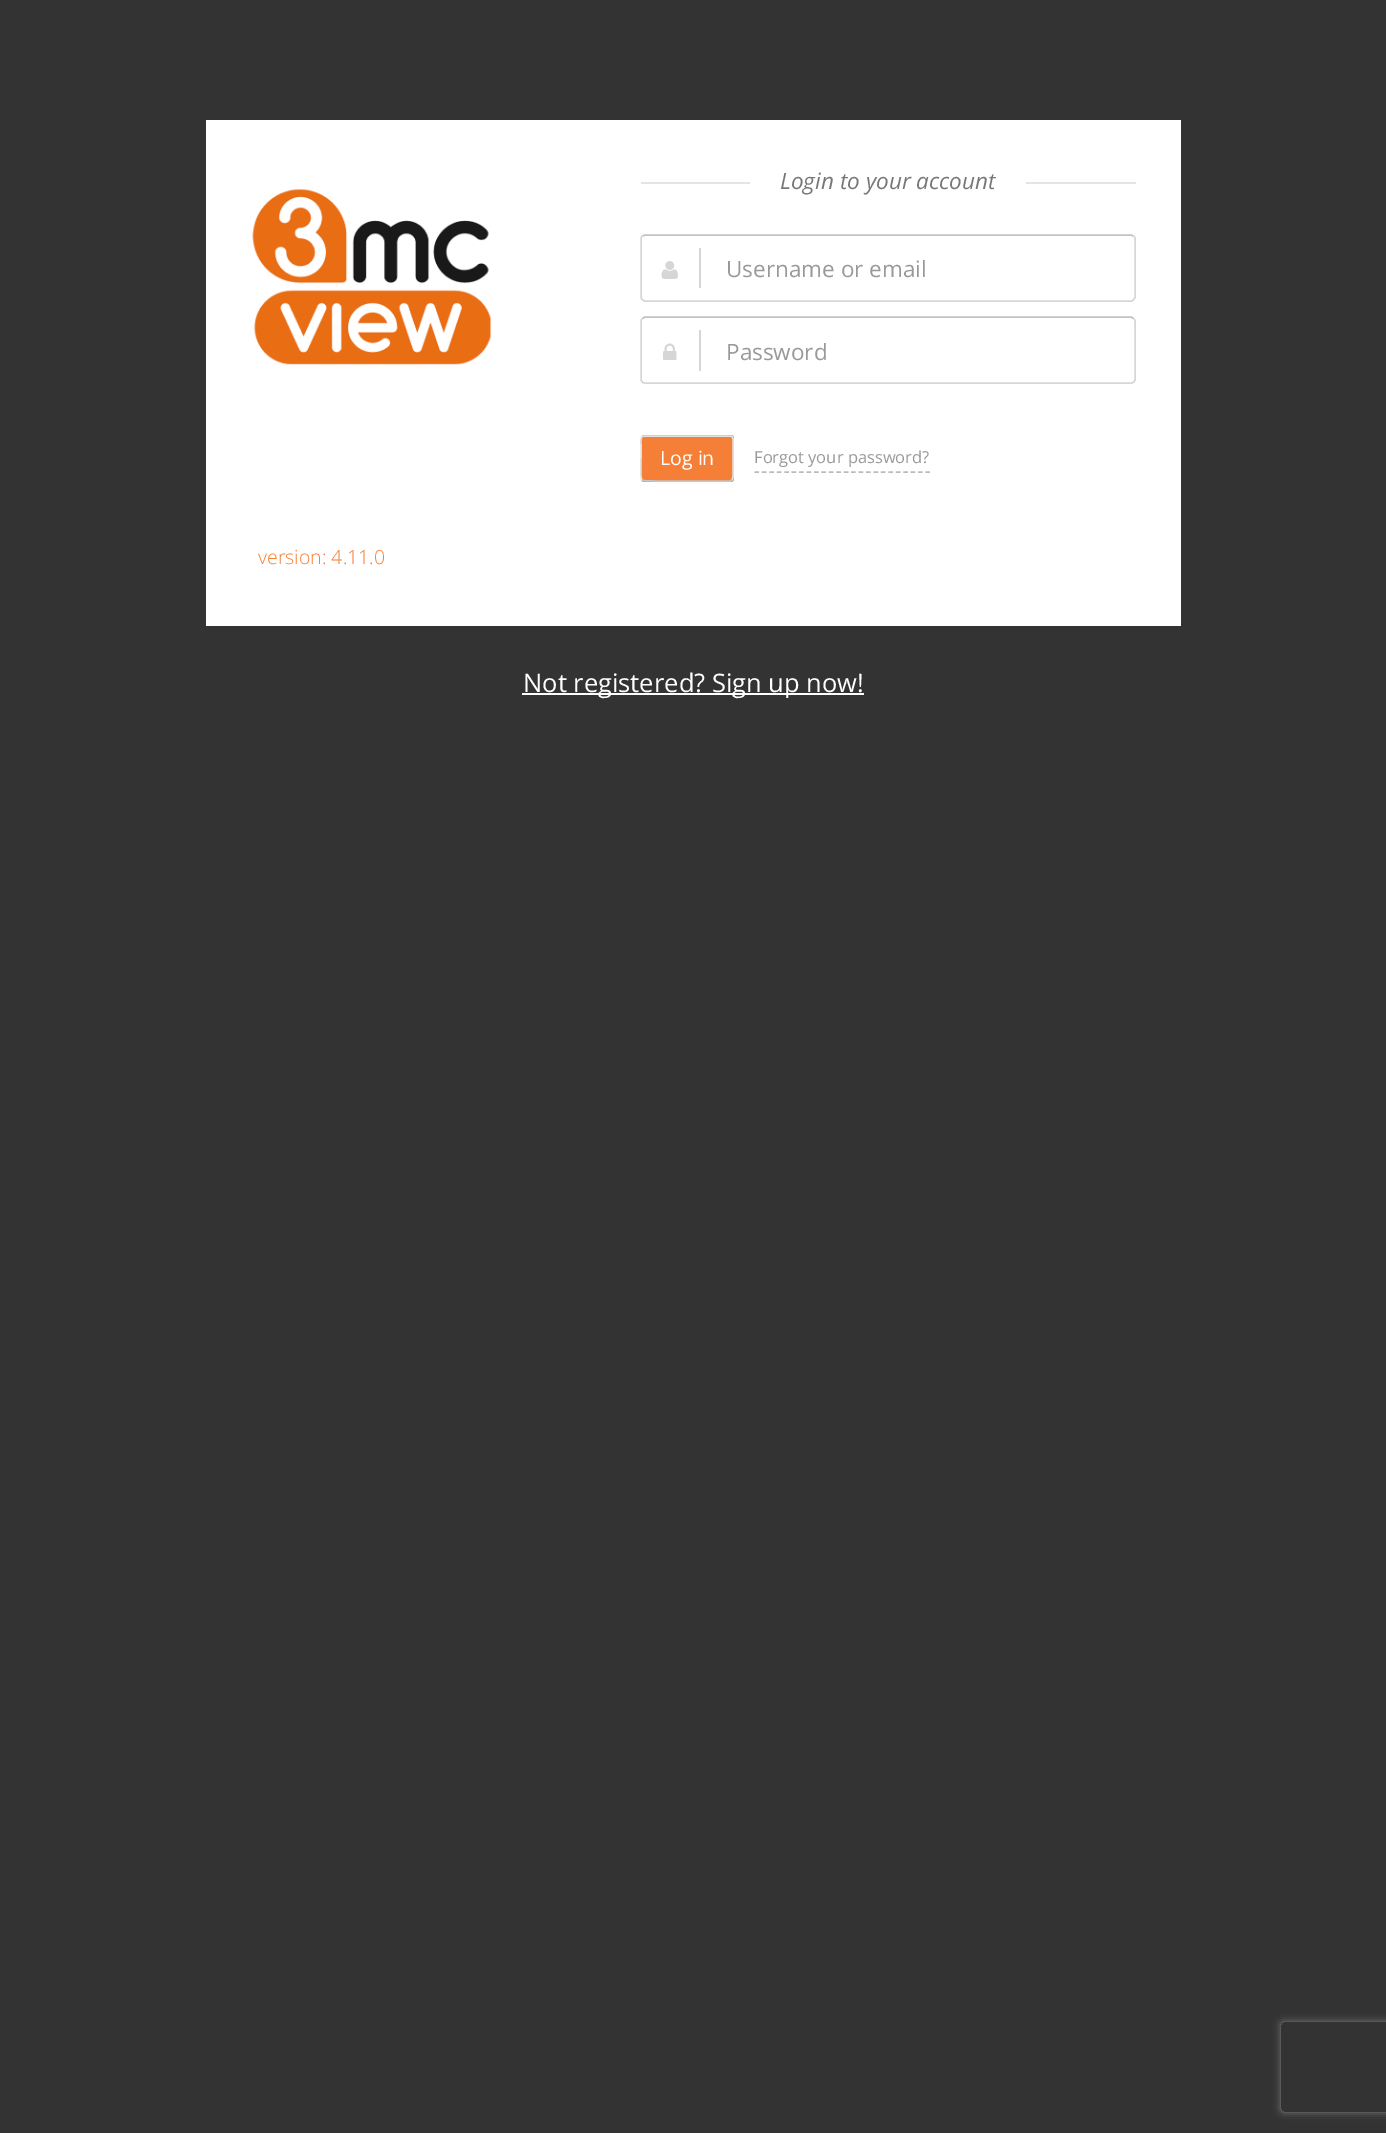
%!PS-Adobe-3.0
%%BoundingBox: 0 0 1386 2133
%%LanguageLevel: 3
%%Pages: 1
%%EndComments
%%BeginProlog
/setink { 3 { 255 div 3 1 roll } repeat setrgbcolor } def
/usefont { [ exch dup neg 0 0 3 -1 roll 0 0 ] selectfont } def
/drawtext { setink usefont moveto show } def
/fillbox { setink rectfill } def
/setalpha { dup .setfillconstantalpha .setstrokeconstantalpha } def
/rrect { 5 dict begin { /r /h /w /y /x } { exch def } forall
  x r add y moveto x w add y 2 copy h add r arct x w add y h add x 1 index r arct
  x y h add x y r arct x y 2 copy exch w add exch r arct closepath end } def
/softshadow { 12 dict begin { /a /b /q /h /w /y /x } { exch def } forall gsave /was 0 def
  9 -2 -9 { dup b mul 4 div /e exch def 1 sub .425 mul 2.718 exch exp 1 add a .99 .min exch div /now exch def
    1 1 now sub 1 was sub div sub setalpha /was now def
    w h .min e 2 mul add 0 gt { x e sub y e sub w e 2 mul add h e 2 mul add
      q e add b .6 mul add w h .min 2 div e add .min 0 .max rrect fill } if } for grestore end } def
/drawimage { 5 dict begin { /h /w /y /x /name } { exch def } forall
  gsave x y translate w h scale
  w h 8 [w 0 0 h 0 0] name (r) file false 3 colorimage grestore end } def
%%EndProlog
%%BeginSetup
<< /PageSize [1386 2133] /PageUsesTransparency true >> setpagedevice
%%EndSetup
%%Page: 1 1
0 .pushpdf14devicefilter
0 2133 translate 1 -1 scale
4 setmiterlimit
0 0 1386 2133 51 51 51 fillbox
206 120 975 506 255 255 255 fillbox
641 182 495 2 228 228 228 fillbox
750 182 276 2 255 255 255 fillbox
(Login to your account) 780 189 /OpenSans-Italic 22.5 119 119 119 drawtext
194 194 194 setink
1.5 setlinewidth
642.5 236 moveto 645 235 lineto 1131 235 lineto 1133.5 236 lineto stroke
214 214 214 setink
1133.5 236 moveto 1134.5 236.5 1135 237.5 1135 238.5 curveto 1135 297 lineto 1135 298 1134.5 299 1133.5 299.5 curveto 1133 300.5 1132 301 1131 301 curveto 645 301 lineto 644 301 643 300.5 642.5 299.5 curveto 641.5 299 641 298 641 297 curveto 641 238.5 lineto 641 237.5 641.5 236.5 642.5 236 curveto stroke
699 248 2 40 214 214 214 fillbox
(assets/img1.rgb) 661 261 17 18 drawimage
(Username or email) 726 277 /OpenSans-Regular 22.5 153 153 153 drawtext
194 194 194 setink
642.5 318.5 moveto 645 317 lineto 1131 317 lineto 1133.5 318.5 lineto stroke
214 214 214 setink
1133.5 318.5 moveto 1134.5 319 1135 320 1135 321 curveto 1135 379.5 lineto 1135 380.5 1134.5 381.5 1133.5 382 curveto 1133 383 1132 383 1131 383 curveto 645 383 lineto 644 383 643 383 642.5 382 curveto 641.5 381.5 641 380.5 641 379.5 curveto 641 321 lineto 641 320 641.5 319 642.5 318.5 curveto stroke
699 330 2 41 214 214 214 fillbox
(assets/img2.rgb) 663 343 14 17 drawimage
(Password) 726 360 /OpenSans-Regular 22.5 153 153 153 drawtext
245 127 54 setink
641 435 93 47 3 rrect fill
198 198 198 setink
732 480 moveto 730.5 481 lineto 716 481 lineto 708.5 481 644 481.5 642.5 480.5 curveto 642 480 lineto stroke
226 226 226 setink
642 480 moveto 640 478.5 641 461.5 641 458 curveto 641 445 lineto 641 444 639.5 436 643.5 436 curveto 730.5 436 lineto 734.5 436 733 444 733 445 curveto 733 458 lineto 733 461.5 734 478.5 732 480 curveto stroke
(Log in) 660 465 /OpenSans-Regular 19.5 255 255 255 drawtext
187 187 187 setink
[4.5 2.94] 0 setdash
754.5 472 moveto 930 472 lineto stroke
(Forgot your password?) 754 463 /OpenSans-Regular 16.5 153 153 153 drawtext
(assets/img3.rgb) 252 189 239 176 drawimage
(version: 4.11.0) 258 564 /OpenSans-Light 19.5 245 127 54 drawtext
522 693 342 2 255 255 255 fillbox
(Not registered? Sign up now!) 523 692 /OpenSans-Regular 25.5 255 255 255 drawtext
gsave
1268 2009 moveto 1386 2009 lineto 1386 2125 lineto 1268 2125 lineto closepath 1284 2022 moveto 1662 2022 lineto 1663.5 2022 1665 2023.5 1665 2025 curveto 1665 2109 lineto 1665 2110.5 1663.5 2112 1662 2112 curveto 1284 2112 lineto 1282.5 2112 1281 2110.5 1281 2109 curveto 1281 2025 lineto 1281 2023.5 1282.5 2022 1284 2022 curveto closepath eoclip newpath
128 128 128 setink
1281 2022 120 90 3 4 1 softshadow
grestore
.poppdf14devicefilter showpage
%%EOF
